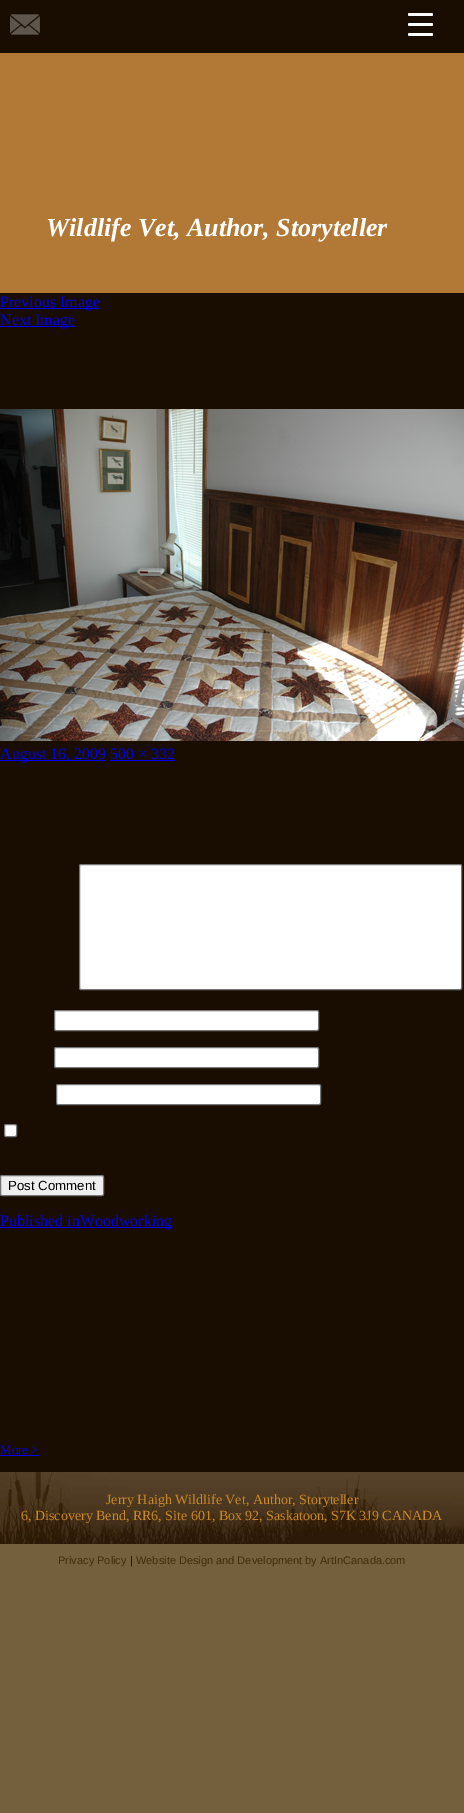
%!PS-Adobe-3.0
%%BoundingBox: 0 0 464 1813
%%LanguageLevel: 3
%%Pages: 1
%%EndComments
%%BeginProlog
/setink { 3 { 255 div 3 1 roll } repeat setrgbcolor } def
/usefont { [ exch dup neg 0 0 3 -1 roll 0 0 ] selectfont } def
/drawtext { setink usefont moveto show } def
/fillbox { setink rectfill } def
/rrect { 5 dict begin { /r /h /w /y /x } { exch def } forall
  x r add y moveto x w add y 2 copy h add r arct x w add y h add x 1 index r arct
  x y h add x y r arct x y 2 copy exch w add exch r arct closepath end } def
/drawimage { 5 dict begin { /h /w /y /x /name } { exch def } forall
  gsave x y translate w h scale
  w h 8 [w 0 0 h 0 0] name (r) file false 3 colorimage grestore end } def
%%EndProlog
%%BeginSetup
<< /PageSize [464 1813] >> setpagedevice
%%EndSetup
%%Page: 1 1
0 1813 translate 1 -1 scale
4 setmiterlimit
0 0 464 1813 117 96 61 fillbox
0 0 464 1472 24 13 0 fillbox
(assets/img1.rgb) 10 14 30 21 drawimage
255 255 255 setink
408 23 25 3 1.5 rrect fill
408 13 25 3 1.5 rrect fill
408 33 25 3 1.5 rrect fill
0 53 464 240 178 121 54 fillbox
(Wildlife Vet, Author, Storyteller) 46 236 /LiberationSerif-BoldItalic 26 255 255 255 drawtext
0 308 100 1 0 0 238 fillbox
(Previous Image) 0 307 /LiberationSerif-Regular 16 0 0 238 drawtext
0 326 75 1 0 0 238 fillbox
(Next Image) 0 325 /LiberationSerif-Regular 16 0 0 238 drawtext
(assets/img2.rgb) 0 409 464 332 drawimage
0 760 106 1 0 0 238 fillbox
(August 16, 2009 500 × 332) 0 759 /LiberationSerif-Regular 16 0 0 238 drawtext
110 760 65 1 0 0 238 fillbox
255 255 255 setink
79.5 864.5 382 125 1.5 rrect gsave fill grestore
118 118 118 setink
stroke
255 255 255 setink
54.5 1010.5 264 20 1.5 rrect gsave fill grestore
118 118 118 setink
stroke
255 255 255 setink
54.5 1047.5 264 20 1.5 rrect gsave fill grestore
118 118 118 setink
stroke
255 255 255 setink
56.5 1084.5 264 20 1.5 rrect gsave fill grestore
118 118 118 setink
stroke
255 255 255 setink
4.5 1124.5 12 12 1.5 rrect gsave fill grestore
118 118 118 setink
stroke
239 239 239 setink
0.5 1175.5 103 20 1.5 rrect gsave fill grestore
118 118 118 setink
stroke
(Post Comment) 8 1190 /LiberationSans-Regular 13.25 0 0 0 drawtext
0 1227 172 1 0 0 238 fillbox
(Published inWoodworking) 0 1226 /LiberationSerif-Regular 16 0 0 238 drawtext
(More >) 0 1454 /LiberationSerif-Regular 13 0 0 238 drawtext
0 1455 39 1 0 0 238 fillbox
(assets/img3.rgb) 0 1472 464 72 drawimage
(Jerry Haigh Wildlife Vet, Author, Storyteller) 106 1504 /LiberationSerif-Regular 14 202 136 39 drawtext
(6, Discovery Bend, RR6, Site 601, Box 92, Saskatoon, S7K 3J9 CANADA) 21 1520 /LiberationSerif-Regular 14 202 136 39 drawtext
(Privacy Policy) 58 1564 /LiberationSans-Regular 11 65 46 8 drawtext
(|) 130 1564 /LiberationSans-Regular 11 0 0 0 drawtext
(Website Design and Development by ArtInCanada.com) 136 1564 /LiberationSans-Regular 11 65 46 8 drawtext
showpage
%%EOF
